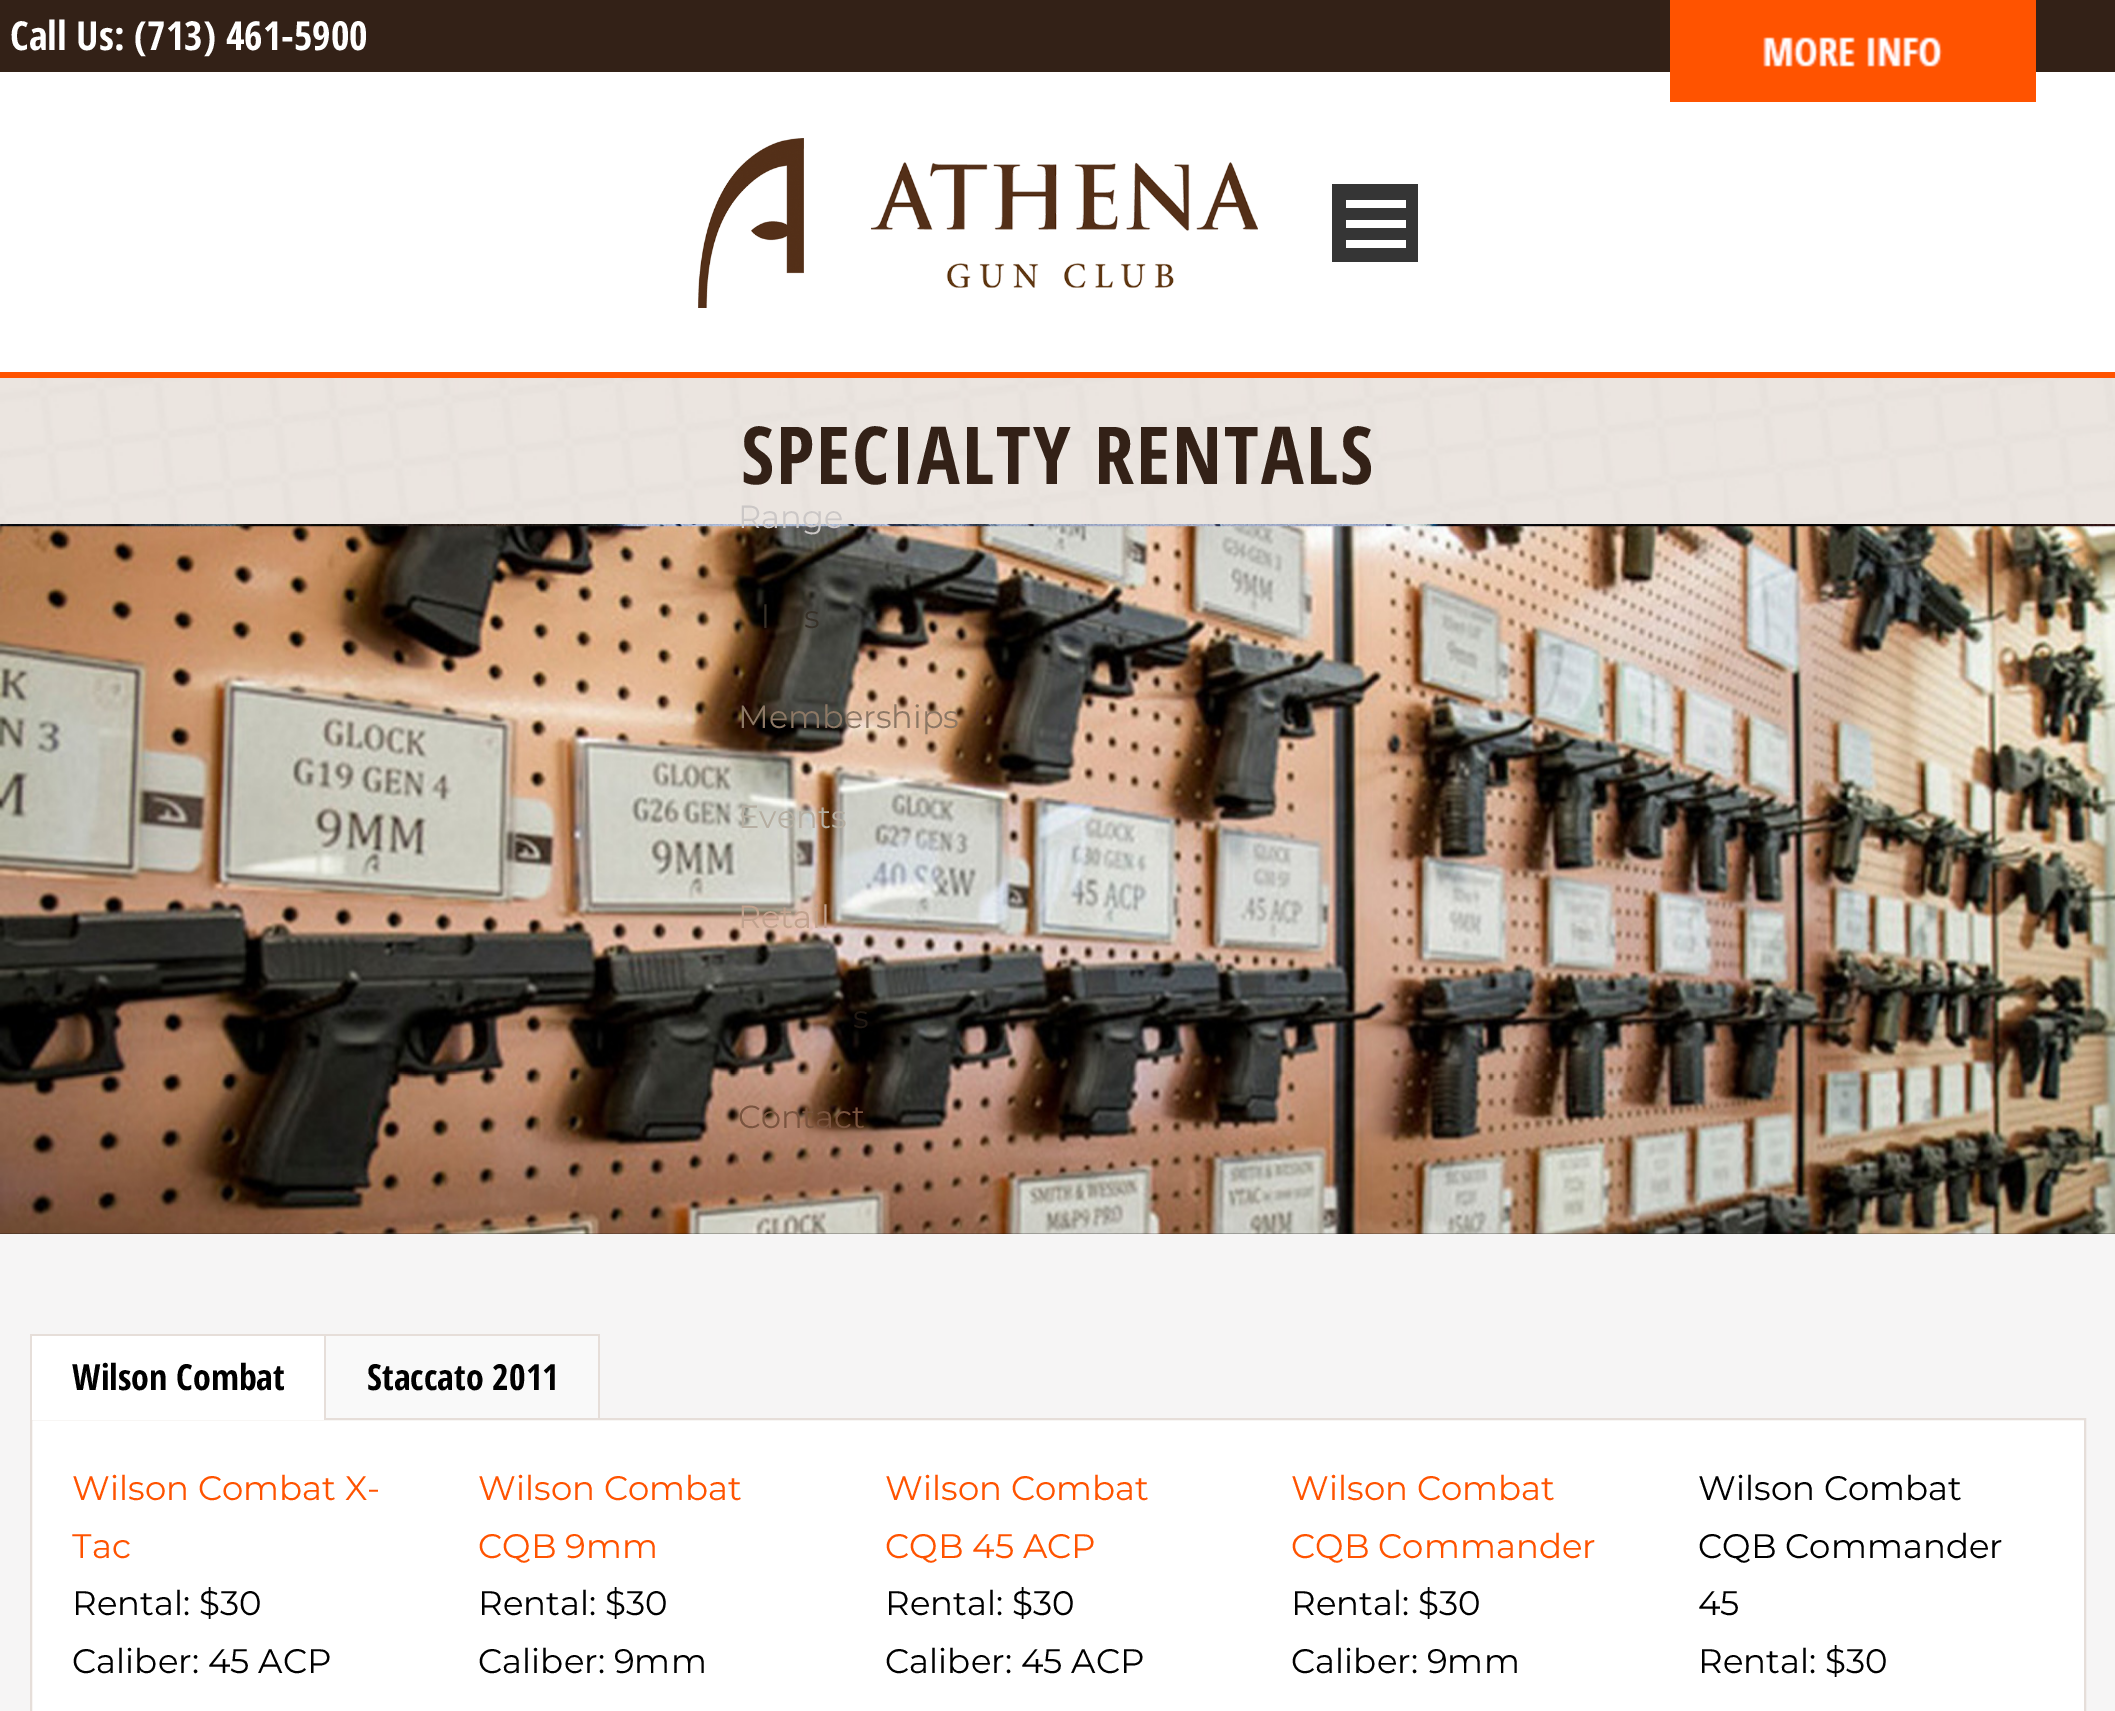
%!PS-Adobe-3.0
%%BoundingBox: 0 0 2115 1711
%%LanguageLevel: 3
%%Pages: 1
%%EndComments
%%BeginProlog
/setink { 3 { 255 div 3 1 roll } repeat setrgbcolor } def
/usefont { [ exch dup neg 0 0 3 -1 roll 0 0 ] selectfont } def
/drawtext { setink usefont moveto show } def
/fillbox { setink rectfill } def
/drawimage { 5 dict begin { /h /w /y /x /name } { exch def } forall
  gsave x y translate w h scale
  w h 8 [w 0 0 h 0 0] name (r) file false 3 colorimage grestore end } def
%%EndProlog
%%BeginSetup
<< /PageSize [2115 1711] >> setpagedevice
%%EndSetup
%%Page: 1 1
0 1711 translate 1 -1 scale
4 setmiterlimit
0 0 2115 1711 246 245 245 fillbox
0 0 2115 72 51 33 23 fillbox
(Call Us: \(713\) 461-5900) 10 50 /OpenSansCondensed-Bold 40 255 255 255 drawtext
0 72 2115 300 255 255 255 fillbox
(assets/img1.rgb) 1670 0 366 102 drawimage
0 372 2115 6 255 83 0 fillbox
(assets/img2.rgb) 698 138 560 170 drawimage
1332 184 86 78 53 53 53 fillbox
1346 240 60 8 255 255 255 fillbox
1346 220 60 8 255 255 255 fillbox
1346 200 60 8 255 255 255 fillbox
(assets/img3.rgb) 0 378 2115 146 drawimage
(assets/img4.rgb) 0 524 2115 710 drawimage
(Range) 738 528 /Montserrat-Thin 32 203 199 198 drawtext
(l) 761 628 /Montserrat-Thin 32 56 49 40 drawtext
(s) 804 628 /Montserrat-Thin 32 56 49 40 drawtext
(Memberships) 738 728 /Montserrat-Thin 32 140 119 100 drawtext
(Events) 738 828 /Montserrat-Thin 32 182 174 161 drawtext
(Retail) 738 928 /Montserrat-Thin 32 192 161 141 drawtext
(s) 853 1028 /Montserrat-Thin 32 34 26 20 drawtext
(Contact) 738 1128 /Montserrat-Thin 32 122 84 63 drawtext
/OpenSansCondensed-Bold 80 usefont
51 33 23 setink
741 484 moveto 2 0 (SPECIALTY RENTALS) ashow
255 255 255 setink
31 1419 moveto 2085 1419 lineto 2085 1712 lineto 31 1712 lineto closepath gsave fill grestore
230 222 217 setink
2 setlinewidth
stroke
32 1336 292 84 255 255 255 fillbox
30 1334 570 2 230 222 217 fillbox
324 1334 2 86 230 222 217 fillbox
30 1334 2 86 230 222 217 fillbox
(Wilson Combat) 72 1390 /OpenSansCondensed-Bold 36 0 0 0 drawtext
326 1336 272 82 249 249 249 fillbox
598 1334 2 86 230 222 217 fillbox
(Staccato 2011) 367 1390 /OpenSansCondensed-Bold 36 0 0 0 drawtext
(Wilson Combat X-) 72 1500 /Montserrat-Thin 34 255 83 0 drawtext
(Tac) 72 1558 /Montserrat-Thin 34 255 83 0 drawtext
(Rental: $30) 72 1615 /Montserrat-Thin 34 0 0 0 drawtext
(Caliber: 45 ACP) 72 1673 /Montserrat-Thin 34 0 0 0 drawtext
(Wilson Combat) 478 1500 /Montserrat-Thin 34 255 83 0 drawtext
(CQB 9mm) 478 1558 /Montserrat-Thin 34 255 83 0 drawtext
(Rental: $30) 478 1615 /Montserrat-Thin 34 0 0 0 drawtext
(Caliber: 9mm) 478 1673 /Montserrat-Thin 34 0 0 0 drawtext
(Wilson Combat) 885 1500 /Montserrat-Thin 34 255 83 0 drawtext
(CQB 45 ACP) 885 1558 /Montserrat-Thin 34 255 83 0 drawtext
(Rental: $30) 885 1615 /Montserrat-Thin 34 0 0 0 drawtext
(Caliber: 45 ACP) 885 1673 /Montserrat-Thin 34 0 0 0 drawtext
(Wilson Combat) 1291 1500 /Montserrat-Thin 34 255 83 0 drawtext
(CQB Commander) 1291 1558 /Montserrat-Thin 34 255 83 0 drawtext
(Rental: $30) 1291 1615 /Montserrat-Thin 34 0 0 0 drawtext
(Caliber: 9mm) 1291 1673 /Montserrat-Thin 34 0 0 0 drawtext
(Wilson Combat) 1698 1500 /Montserrat-Thin 34 0 0 0 drawtext
(CQB Commander) 1698 1558 /Montserrat-Thin 34 0 0 0 drawtext
(45) 1698 1615 /Montserrat-Thin 34 0 0 0 drawtext
(Rental: $30) 1698 1673 /Montserrat-Thin 34 0 0 0 drawtext
showpage
%%EOF
